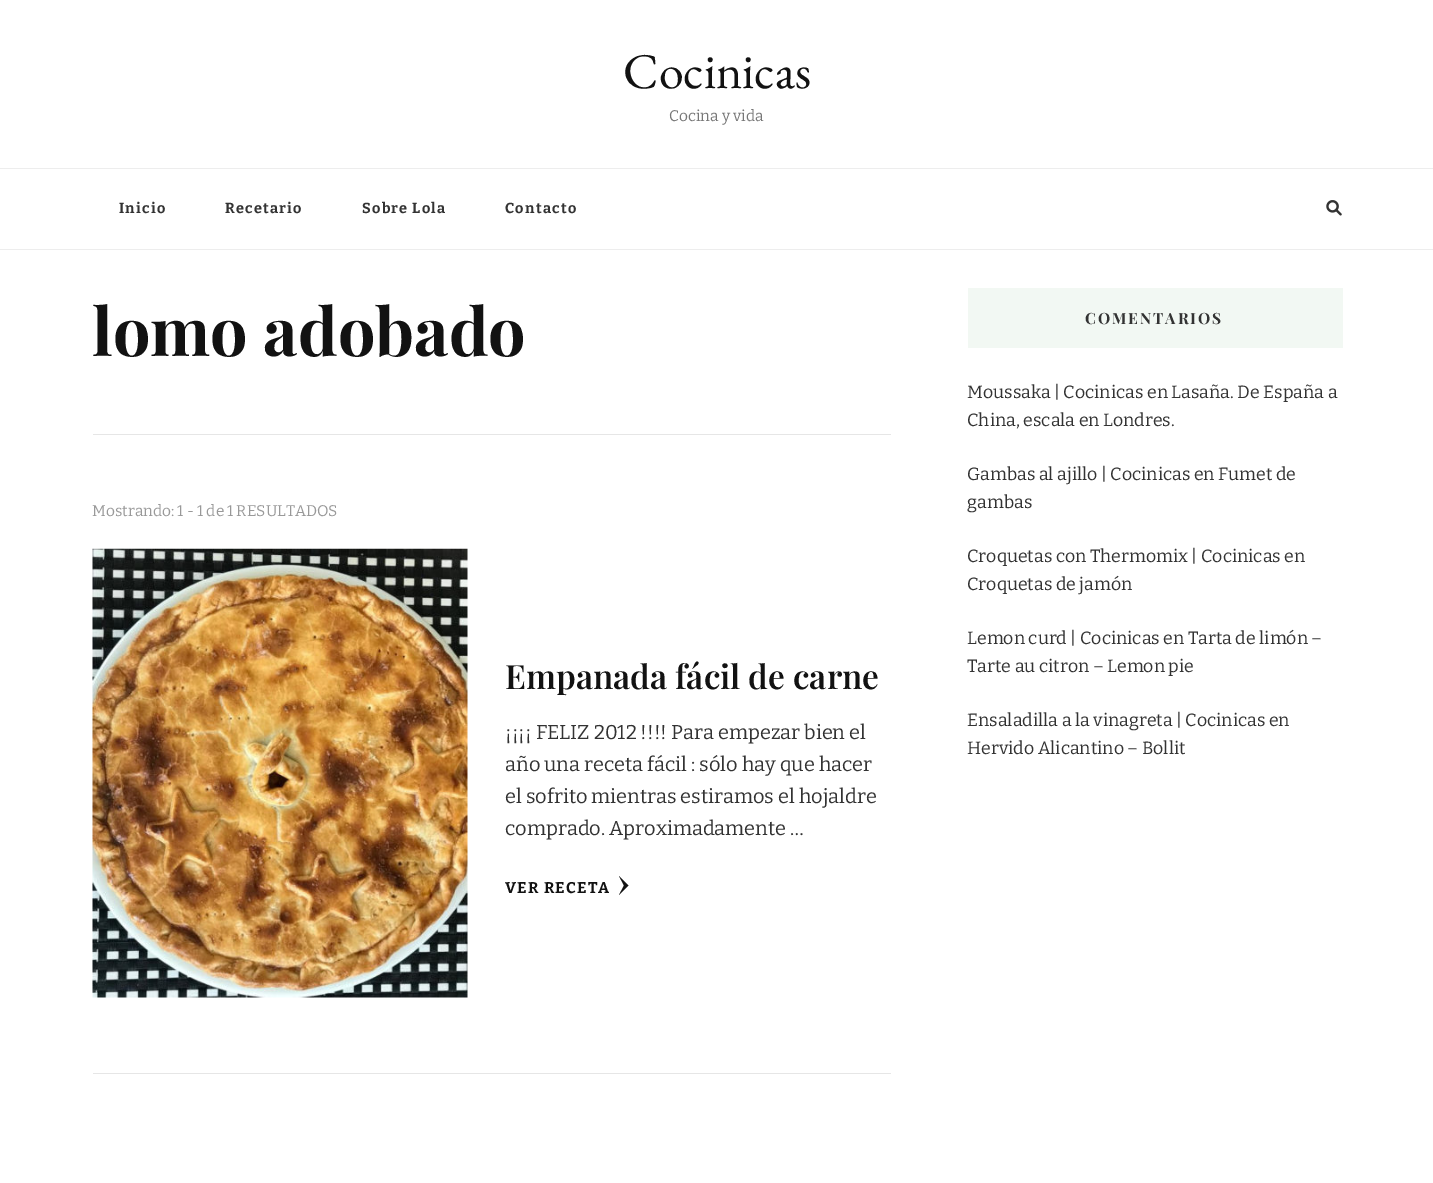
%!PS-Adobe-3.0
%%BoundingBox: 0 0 1433 1183
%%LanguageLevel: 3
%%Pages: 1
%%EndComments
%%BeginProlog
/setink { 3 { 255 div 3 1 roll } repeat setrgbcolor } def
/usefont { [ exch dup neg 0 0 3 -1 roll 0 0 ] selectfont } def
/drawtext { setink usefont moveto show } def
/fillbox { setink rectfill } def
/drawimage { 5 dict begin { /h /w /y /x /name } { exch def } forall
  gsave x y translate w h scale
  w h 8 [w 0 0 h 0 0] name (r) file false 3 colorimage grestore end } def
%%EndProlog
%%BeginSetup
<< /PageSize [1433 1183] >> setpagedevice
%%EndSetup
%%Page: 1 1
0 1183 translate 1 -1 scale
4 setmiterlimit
0 0 1433 1183 255 255 255 fillbox
(Cocinicas) 623 88 /EBGaramond-Regular 50 18 18 18 drawtext
(Cocina y vida) 669 121 /Bitter-Regular 15.5 119 119 119 drawtext
0 168 1433 1 237 237 237 fillbox
0 249 1433 1 237 237 237 fillbox
/Bitter-Bold 14.5 usefont
51 51 51 setink
119 213 moveto 1.25 0 (Inicio) ashow
225 213 moveto 1.25 0 (Recetario) ashow
362 213 moveto 1.25 0 (Sobre Lola) ashow
505 213 moveto 1.25 0 (Contacto) ashow
(assets/img1.rgb) 1326 200 16 16 drawimage
93 434 798 1 230 230 230 fillbox
(lomo adobado) 92 356 /PlayfairDisplay-Bold 66.5 18 18 18 drawtext
(Mostrando: 1 - 1 de 1 RESULTADOS) 92 516 /Bitter-Regular 15.5 153 153 153 drawtext
93 1073 798 1 230 230 230 fillbox
(assets/img2.rgb) 92 548 376 450 drawimage
(Empanada fácil de carne) 505 689 /PlayfairDisplay-SemiBold 33.4 18 18 18 drawtext
(¡¡¡¡ FELIZ 2012 !!!! Para empezar bien el) 505 739 /Bitter-Regular 20 51 51 51 drawtext
(año una receta fácil : sólo hay que hacer) 505 771 /Bitter-Regular 20 51 51 51 drawtext
(el sofrito mientras estiramos el hojaldre) 505 803 /Bitter-Regular 20 51 51 51 drawtext
(comprado. Aproximadamente …) 505 835 /Bitter-Regular 20 51 51 51 drawtext
/Bitter-Bold 15.5 usefont
18 18 18 setink
505 893 moveto 1.25 0 (VER RECETA) ashow
628.5 885.5 moveto 619 895 lineto 624 885.5 lineto 619 876 lineto closepath fill
968 288 375 60 242 248 243 fillbox
/PlayfairDisplay-Bold 15.5 usefont
51 51 51 setink
1085 324 moveto 1.9 0 (COMENTARIOS) ashow
(Moussaka | Cocinicas en Lasaña. De España a) 967 398 /Bitter-Regular 17.75 51 51 51 drawtext
(China, escala en Londres.) 967 426 /Bitter-Regular 17.75 51 51 51 drawtext
(Gambas al ajillo | Cocinicas en Fumet de) 967 480 /Bitter-Regular 17.75 51 51 51 drawtext
(gambas) 967 508 /Bitter-Regular 17.75 51 51 51 drawtext
(Croquetas con Thermomix | Cocinicas en) 967 562 /Bitter-Regular 17.75 51 51 51 drawtext
(Croquetas de jamón) 967 590 /Bitter-Regular 17.75 51 51 51 drawtext
(Lemon curd | Cocinicas en Tarta de limón –) 967 644 /Bitter-Regular 17.75 51 51 51 drawtext
(Tarte au citron – Lemon pie) 967 672 /Bitter-Regular 17.75 51 51 51 drawtext
(Ensaladilla a la vinagreta | Cocinicas en) 967 726 /Bitter-Regular 17.75 51 51 51 drawtext
(Hervido Alicantino – Bollit) 967 754 /Bitter-Regular 17.75 51 51 51 drawtext
showpage
%%EOF
